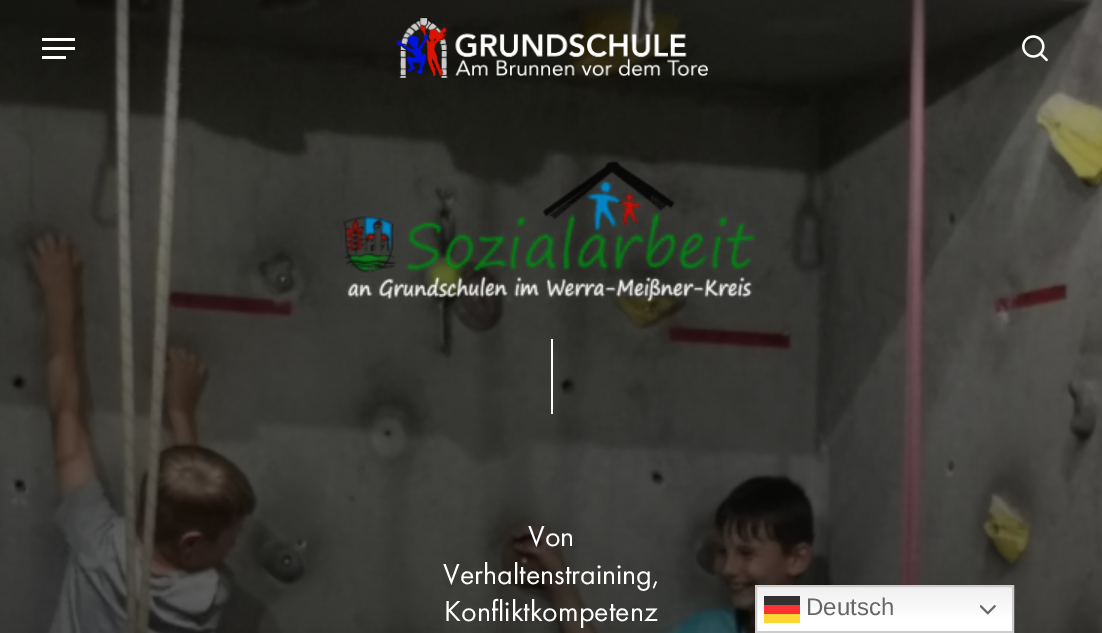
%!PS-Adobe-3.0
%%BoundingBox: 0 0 1102 633
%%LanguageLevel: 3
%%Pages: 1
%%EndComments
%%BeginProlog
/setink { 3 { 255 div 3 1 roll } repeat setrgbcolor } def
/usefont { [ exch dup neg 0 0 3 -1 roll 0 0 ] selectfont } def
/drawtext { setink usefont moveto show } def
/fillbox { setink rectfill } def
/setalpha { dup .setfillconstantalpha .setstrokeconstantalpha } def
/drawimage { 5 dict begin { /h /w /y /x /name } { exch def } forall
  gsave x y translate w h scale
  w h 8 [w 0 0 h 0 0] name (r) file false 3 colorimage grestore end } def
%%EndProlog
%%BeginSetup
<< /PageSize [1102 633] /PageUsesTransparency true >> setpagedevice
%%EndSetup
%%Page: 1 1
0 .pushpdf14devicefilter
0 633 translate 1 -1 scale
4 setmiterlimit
0 0 1102 633 255 255 255 fillbox
(assets/img3.rgb) 0 0 1102 633 drawimage
(assets/img1.rgb) 395 18 313 60 drawimage
42 38 33 3 255 255 255 fillbox
42 56 24 3 255 255 255 fillbox
42 47 33 3 255 255 255 fillbox
(assets/img2.rgb) 1022 35 26 27 drawimage
(assets/img4.rgb) 343 160 413 142 drawimage
551 339 2 75 255 255 255 fillbox
(Von) 528 546 /FuturaPT-Regular 30 255 255 255 drawtext
(Verhaltenstraining,) 443 584 /FuturaPT-Regular 30 255 255 255 drawtext
(Konfliktkompetenz) 444 621 /FuturaPT-Regular 30 255 255 255 drawtext
gsave 757 587 moveto 1012 587 lineto 1012 631 lineto 757 631 lineto closepath clip newpath
<< /ShadingType 2 /ColorSpace /DeviceRGB /Coords [884 585 884 633] /Extend [true true] /Function << /FunctionType 3 /Domain [0 1] /Functions [<< /FunctionType 2 /Domain [0 1] /C0 [0.937 0.937 0.937] /C1 [1 1 1] /N 1 >> << /FunctionType 2 /Domain [0 1] /C0 [1 1 1] /C1 [1 1 1] /N 1 >>] /Bounds [0.7] /Encode [0 1 0 1] >> >> shfill grestore
204 204 204 setink
2 setlinewidth
756 586 257 46 rectstroke
0.8 setalpha
764 596 36 9 0 0 0 fillbox
1 setalpha
(Deutsch) 806 615 /LiberationSans-Regular 24 102 102 102 drawtext
0.8 setalpha
764 605 36 9 255 0 0 fillbox
1 setalpha
(assets/img5.rgb) 980 605 16 10 drawimage
764 614 36 9 255 214 51 fillbox
.poppdf14devicefilter showpage
%%EOF
